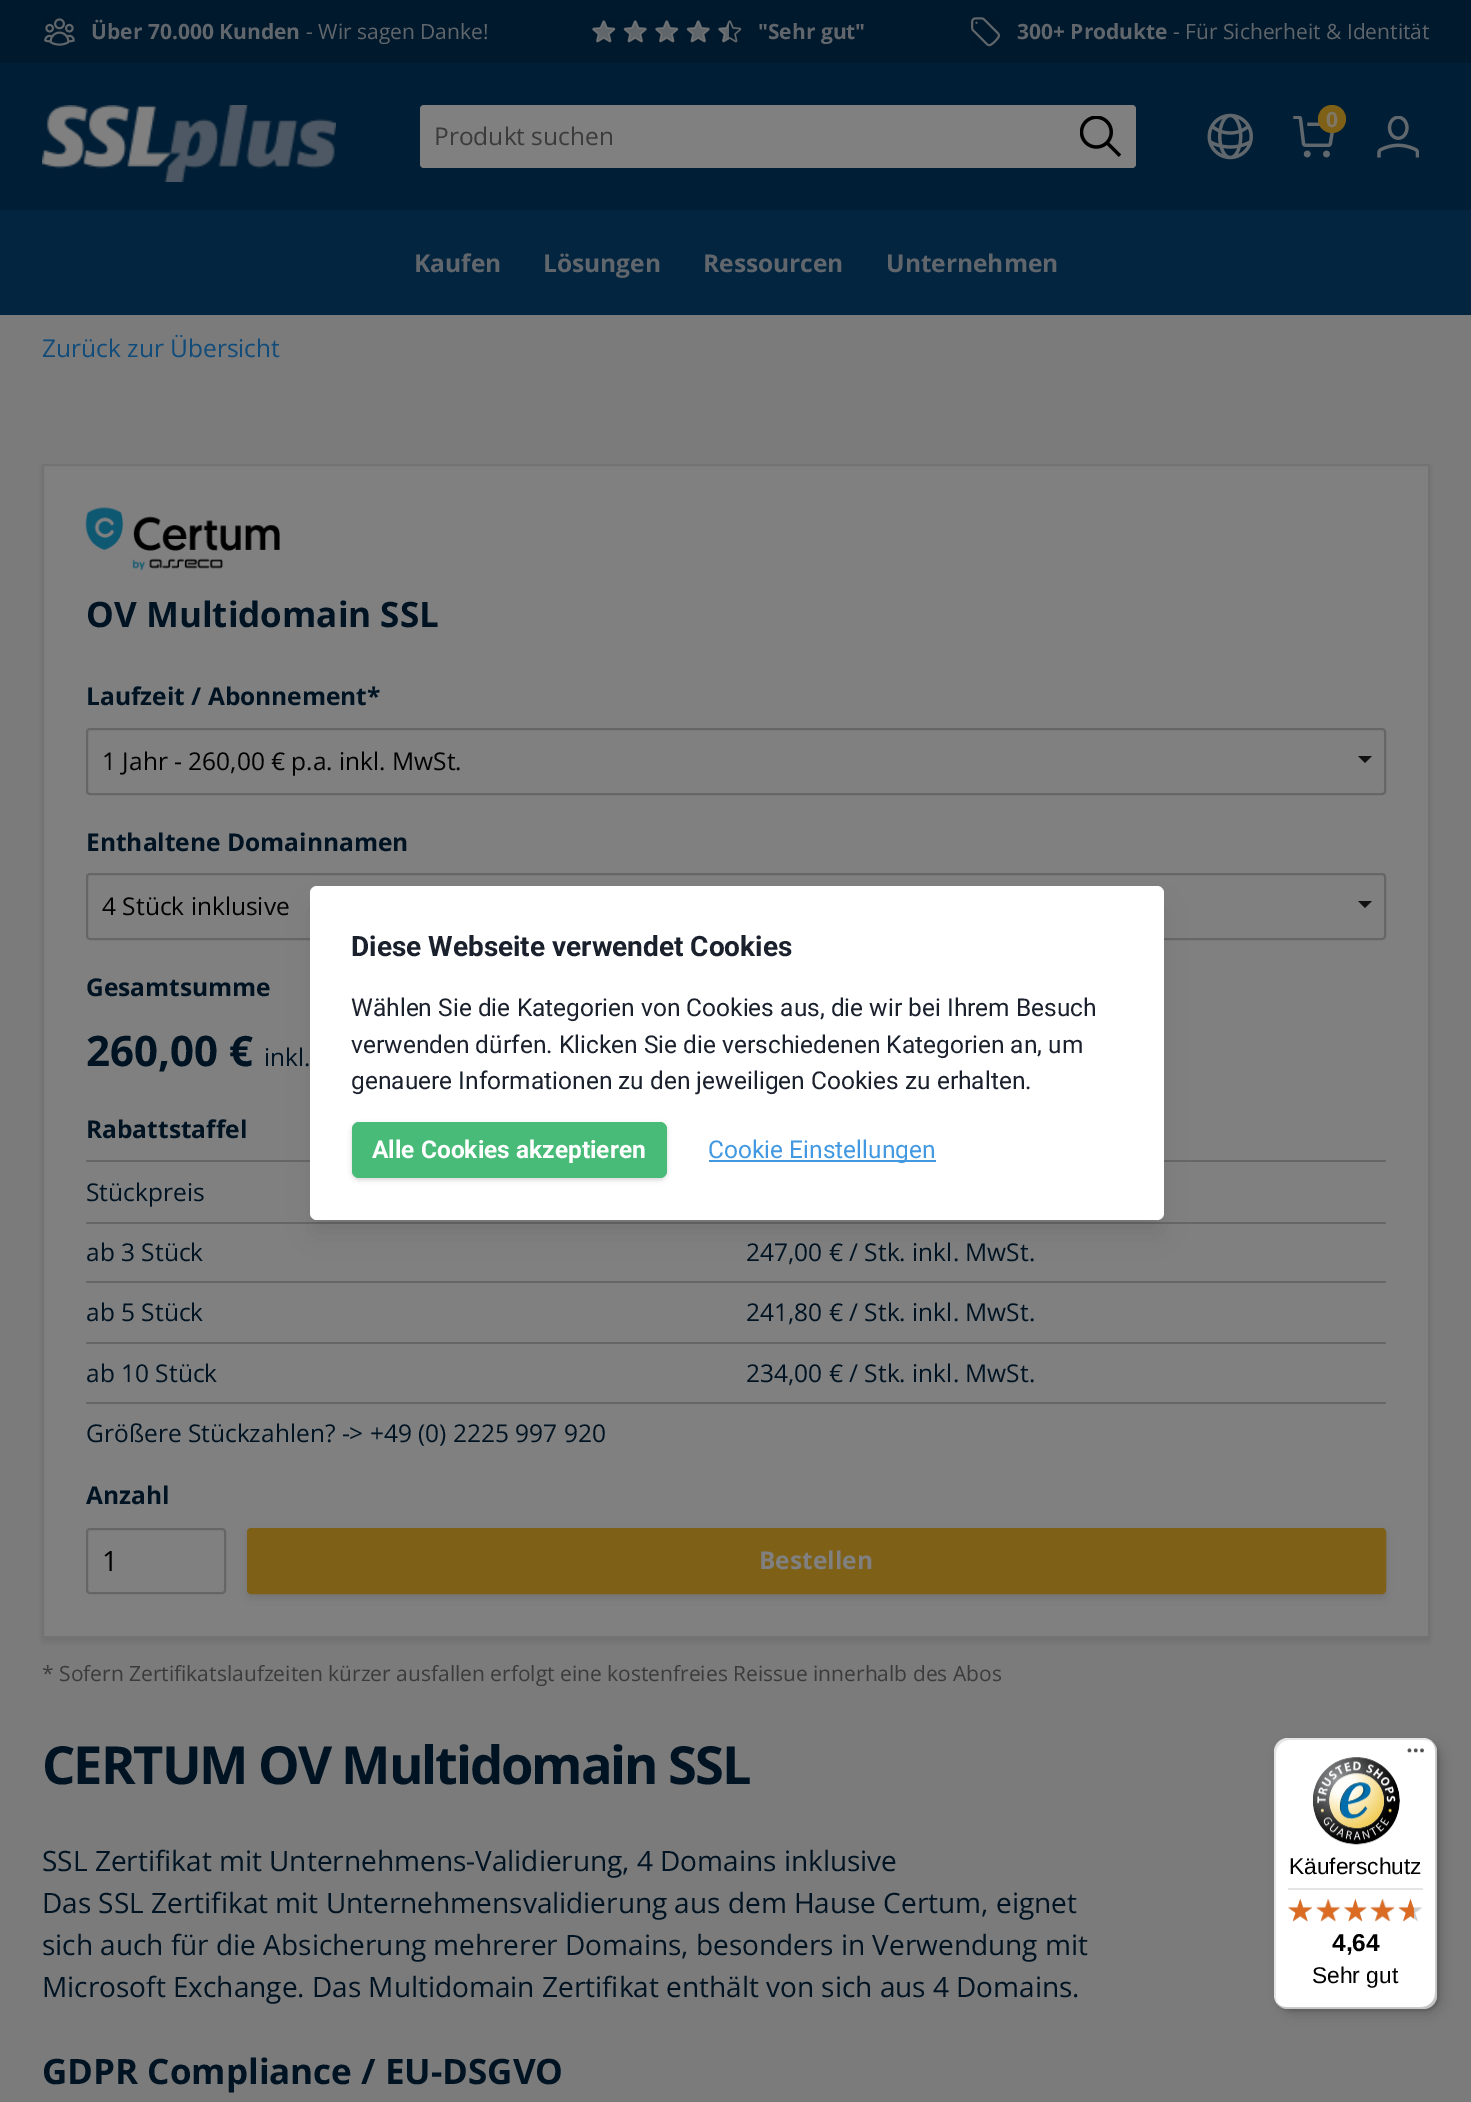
%!PS-Adobe-3.0
%%BoundingBox: 0 0 1471 2102
%%LanguageLevel: 3
%%Pages: 1
%%EndComments
%%BeginProlog
/setink { 3 { 255 div 3 1 roll } repeat setrgbcolor } def
/usefont { [ exch dup neg 0 0 3 -1 roll 0 0 ] selectfont } def
/drawtext { setink usefont moveto show } def
/fillbox { setink rectfill } def
/setalpha { dup .setfillconstantalpha .setstrokeconstantalpha } def
/disc { newpath 0 360 arc closepath } def
/rrect { 5 dict begin { /r /h /w /y /x } { exch def } forall
  x r add y moveto x w add y 2 copy h add r arct x w add y h add x 1 index r arct
  x y h add x y r arct x y 2 copy exch w add exch r arct closepath end } def
/softshadow { 12 dict begin { /a /b /q /h /w /y /x } { exch def } forall gsave /was 0 def
  9 -2 -9 { dup b mul 4 div /e exch def 1 sub .425 mul 2.718 exch exp 1 add a .99 .min exch div /now exch def
    1 1 now sub 1 was sub div sub setalpha /was now def
    w h .min e 2 mul add 0 gt { x e sub y e sub w e 2 mul add h e 2 mul add
      q e add b .6 mul add w h .min 2 div e add .min 0 .max rrect fill } if } for grestore end } def
/drawimage { 5 dict begin { /h /w /y /x /name } { exch def } forall
  gsave x y translate w h scale
  w h 8 [w 0 0 h 0 0] name (r) file false 3 colorimage grestore end } def
%%EndProlog
%%BeginSetup
<< /PageSize [1471 2102] /PageUsesTransparency true >> setpagedevice
%%EndSetup
%%Page: 1 1
0 .pushpdf14devicefilter
0 2102 translate 1 -1 scale
4 setmiterlimit
0 0 1471 2102 123 123 123 fillbox
0 0 1471 63 0 25 44 fillbox
(assets/img1.rgb) 44 18 31 28 drawimage
(Über 70.000 Kunden) 91 39 /OpenSans-Bold 21 96 102 107 drawtext
(- Wir sagen Danke!) 306 39 /OpenSans-Regular 21 96 102 107 drawtext
(assets/img2.rgb) 592 20 24 23 drawimage
(assets/img3.rgb) 623 20 24 23 drawimage
(assets/img2.rgb) 655 20 24 23 drawimage
(assets/img3.rgb) 686 20 24 23 drawimage
(assets/img4.rgb) 718 20 24 23 drawimage
("Sehr gut") 758 39 /OpenSans-Bold 21 96 102 107 drawtext
(assets/img5.rgb) 971 17 29 30 drawimage
(300+ Produkte) 1017 39 /OpenSans-Bold 21 96 102 107 drawtext
(- Für Sicherheit & Identität) 1173 39 /OpenSans-Regular 21 96 102 107 drawtext
0 63 1471 147 0 30 53 fillbox
(assets/img6.rgb) 42 105 294 77 drawimage
(assets/img7.rgb) 1207 113 46 47 drawimage
(assets/img8.rgb) 1293 116 41 42 drawimage
126 96 23 setink
1332 119 14 disc fill
(0) 1326 127 /OpenSans-Bold 21 127 120 102 drawtext
(assets/img9.rgb) 1377 116 42 42 drawimage
128 128 128 setink
420 105 716 63 4 rrect fill
(Produkt suchen) 434 145 /OpenSans-Regular 24.5 59 59 59 drawtext
(assets/img10.rgb) 1080 116 42 41 drawimage
0 210 1471 105 4 37 63 fillbox
(Kaufen) 414 272 /OpenSans-Bold 24.5 96 102 107 drawtext
(Lösungen) 543 272 /OpenSans-Bold 24.5 96 102 107 drawtext
(Ressourcen) 703 272 /OpenSans-Bold 24.5 96 102 107 drawtext
(Unternehmen) 886 272 /OpenSans-Bold 24.5 96 102 107 drawtext
(Zurück zur Übersicht) 42 357 /OpenSans-Regular 24.5 17 75 122 drawtext
0 0 0 setink
42 467 1388 1175 0 3.5 0.1 softshadow
128 128 128 setink
43 465 moveto 1429 465 lineto 1429 1637 lineto 43 1637 lineto closepath gsave fill grestore
115 115 115 setink
2 setlinewidth
stroke
(assets/img11.rgb) 85 507 195 64 drawimage
(OV Multidomain SSL) 86 627 /OpenSans-Bold 35 0 19 34 drawtext
(Laufzeit / Abonnement*) 86 705 /OpenSans-Bold 24.5 0 19 34 drawtext
102 102 102 setink
87 729 1298 65 3 rrect stroke
(1 Jahr - 260,00 € p.a. inkl. MwSt.) 102 770 /OpenSans-Regular 24.5 0 0 0 drawtext
17 17 17 setink
1358 756 moveto 1372 756 lineto 1365 763 lineto closepath fill
(Enthaltene Domainnamen) 86 851 /OpenSans-Bold 24.5 0 19 34 drawtext
102 102 102 setink
87 874 1298 65 3 rrect stroke
(4 Stück inklusive) 102 915 /OpenSans-Regular 24.5 0 0 0 drawtext
17 17 17 setink
1358 901 moveto 1372 901 lineto 1365 908 lineto closepath fill
(Gesamtsumme) 86 996 /OpenSans-Bold 24.5 0 19 34 drawtext
(260,00 €) 86 1066 /OpenSans-Bold 42 0 19 34 drawtext
(inkl.) 264 1066 /OpenSans-Regular 24.5 0 19 34 drawtext
(Rabattstaffel) 86 1138 /OpenSans-Bold 24.5 0 19 34 drawtext
86 1160 1300 2 102 102 102 fillbox
86 1222 1300 2 102 102 102 fillbox
(Stückpreis) 86 1201 /OpenSans-Regular 24.5 0 19 34 drawtext
86 1281 1300 2 102 102 102 fillbox
(ab 3 Stück) 86 1261 /OpenSans-Regular 24.5 0 19 34 drawtext
(247,00 € / Stk. inkl. MwSt.) 746 1261 /OpenSans-Regular 24.5 0 19 34 drawtext
86 1342 1300 2 102 102 102 fillbox
(ab 5 Stück) 86 1321 /OpenSans-Regular 24.5 0 19 34 drawtext
(241,80 € / Stk. inkl. MwSt.) 746 1321 /OpenSans-Regular 24.5 0 19 34 drawtext
86 1402 1300 2 102 102 102 fillbox
(ab 10 Stück) 86 1382 /OpenSans-Regular 24.5 0 19 34 drawtext
(234,00 € / Stk. inkl. MwSt.) 746 1382 /OpenSans-Regular 24.5 0 19 34 drawtext
(Größere Stückzahlen? -> +49 \(0\) 2225 997 920) 86 1442 /OpenSans-Regular 24.5 0 19 34 drawtext
(Anzahl) 86 1504 /OpenSans-Bold 24.5 0 19 34 drawtext
102 102 102 setink
87 1529 138 64 3 rrect stroke
(1) 102 1571 /OpenSans-Regular 28 0 0 0 drawtext
247 1531 1139 67 4 3.5 0.1 softshadow
126 96 23 setink
248 1529 1137 64 3 rrect gsave fill grestore
stroke
(Bestellen) 759 1569 /OpenSans-Bold 24.5 128 128 128 drawtext
(* Sofern Zertifikatslaufzeiten kürzer ausfallen erfolgt eine kostenfreies Reissue innerhalb des Abos) 42 1681 /OpenSans-Regular 21 59 59 59 drawtext
/OpenSans-Bold 52.5 usefont
0 19 34 setink
42 1784 moveto -2.1 0 (CERTUM OV Multidomain SSL) ashow
(SSL Zertifikat mit Unternehmens-Validierung, 4 Domains inklusive) 42 1871 /OpenSans-Regular 28 0 19 34 drawtext
(Das SSL Zertifikat mit Unternehmensvalidierung aus dem Hause Certum, eignet) 42 1913 /OpenSans-Regular 28 0 19 34 drawtext
(sich auch für die Absicherung mehrerer Domains, besonders in Verwendung mit) 42 1955 /OpenSans-Regular 28 0 19 34 drawtext
(Microsoft Exchange. Das Multidomain Zertifikat enthält von sich aus 4 Domains.) 42 1997 /OpenSans-Regular 28 0 19 34 drawtext
(GDPR Compliance / EU-DSGVO) 42 2084 /OpenSans-Bold 35 0 19 34 drawtext
0 0 0 setink
315 908 844 324 2 13 0.1 softshadow
255 255 255 setink
310 886 854 334 7 rrect fill
(Diese Webseite verwendet Cookies) 351 956 /Roboto-Bold 28 26 32 44 drawtext
(Wählen Sie die Kategorien von Cookies aus, die wir bei Ihrem Besuch) 351 1016 /Roboto-Regular 24.5 26 32 44 drawtext
(verwenden dürfen. Klicken Sie die verschiedenen Kategorien an, um) 351 1053 /Roboto-Regular 24.5 26 32 44 drawtext
(genauere Informationen zu den jeweiligen Cookies zu erhalten.) 351 1089 /Roboto-Regular 24.5 26 32 44 drawtext
0 0 0 setink
352 1124 315 56 7 2 0.06 softshadow
352 1124 315 56 7 2.5 0.1 softshadow
72 187 120 setink
352 1122 315 56 7 rrect fill
(Alle Cookies akzeptieren) 372 1158 /Roboto-Bold 24.5 255 255 255 drawtext
709 1160 227 2 66 153 225 fillbox
(Cookie Einstellungen) 708 1158 /Roboto-Regular 24.5 66 153 225 drawtext
0 0 0 setink
1279 1743 163 271 14 7 0.15 softshadow
1276 1740 163 271 14 2 0.15 softshadow
255 255 255 setink
1274 1738 163 271 14 rrect fill
0.1 setalpha
0 0 0 setink
1290 1740 moveto 1424 1740 lineto 1429 1740 1433 1742 1436 1746 curveto 1433 1741 1429 1738 1423 1738 curveto 1288 1738 lineto 1280 1738 1274 1744 1274 1752 curveto 1274 1995 lineto 1274 2000 1276 2004 1280 2006 curveto 1277 2004 1276 2000 1276 1997 curveto 1276 1754 lineto 1276 1746 1282 1740 1290 1740 curveto closepath fill
0.2 setalpha
1277 2003 moveto 1279 2007 1283 2009 1288 2009 curveto 1423 2009 lineto 1431 2009 1437 2003 1437 1995 curveto 1437 1752 lineto 1437 1748 1435 1744 1432 1742 curveto 1434 1744 1435 1747 1435 1750 curveto 1435 1993 lineto 1435 2001 1429 2007 1421 2007 curveto 1286 2007 lineto 1283 2007 1279 2006 1277 2003 curveto closepath fill
50 50 50 setink
1279 2005 moveto 1281 2008 1284 2009 1288 2009 curveto 1423 2009 lineto 1431 2009 1437 2003 1437 1995 curveto 1437 1752 lineto 1437 1747 1435 1743 1431 1741 curveto 1434 1743 1436 1747 1436 1751 curveto 1436 1994 lineto 1436 2002 1429 2008 1422 2008 curveto 1287 2008 lineto 1284 2008 1281 2007 1279 2005 curveto closepath fill
0.3 setalpha
255 255 255 setink
1279 2005 moveto 1281 2008 1284 2009 1288 2009 curveto 1423 2009 lineto 1431 2009 1437 2003 1437 1995 curveto 1437 1752 lineto 1437 1748 1436 1745 1433 1743 curveto 1435 1745 1436 1748 1436 1751 curveto 1436 1994 lineto 1436 2002 1430 2008 1422 2008 curveto 1287 2008 lineto 1284 2008 1281 2007 1279 2005 curveto closepath fill
1 setalpha
(assets/img12.rgb) 1407 1748 17 5 drawimage
(assets/img13.rgb) 1313 1757 87 88 drawimage
(Käuferschutz) 1289 1874 /LiberationSans-Regular 22.75 0 0 0 drawtext
1288 1888 135 2 229 229 229 fillbox
(assets/img19.rgb) 1288 1899 24 23 drawimage
(assets/img14.rgb) 1288 1898 24 24 drawimage
(assets/img20.rgb) 1316 1899 24 23 drawimage
(assets/img15.rgb) 1316 1898 25 24 drawimage
(assets/img21.rgb) 1344 1899 23 23 drawimage
(assets/img16.rgb) 1344 1898 23 24 drawimage
(assets/img22.rgb) 1370 1899 25 22 drawimage
(assets/img17.rgb) 1370 1898 25 24 drawimage
(assets/img23.rgb) 1399 1899 23 23 drawimage
(assets/img18.rgb) 1398 1898 16 24 drawimage
(4,64) 1332 1951 /LiberationSans-Bold 24.5 0 0 0 drawtext
(Sehr gut) 1312 1983 /LiberationSans-Regular 22.75 0 0 0 drawtext
.poppdf14devicefilter showpage
%%EOF
